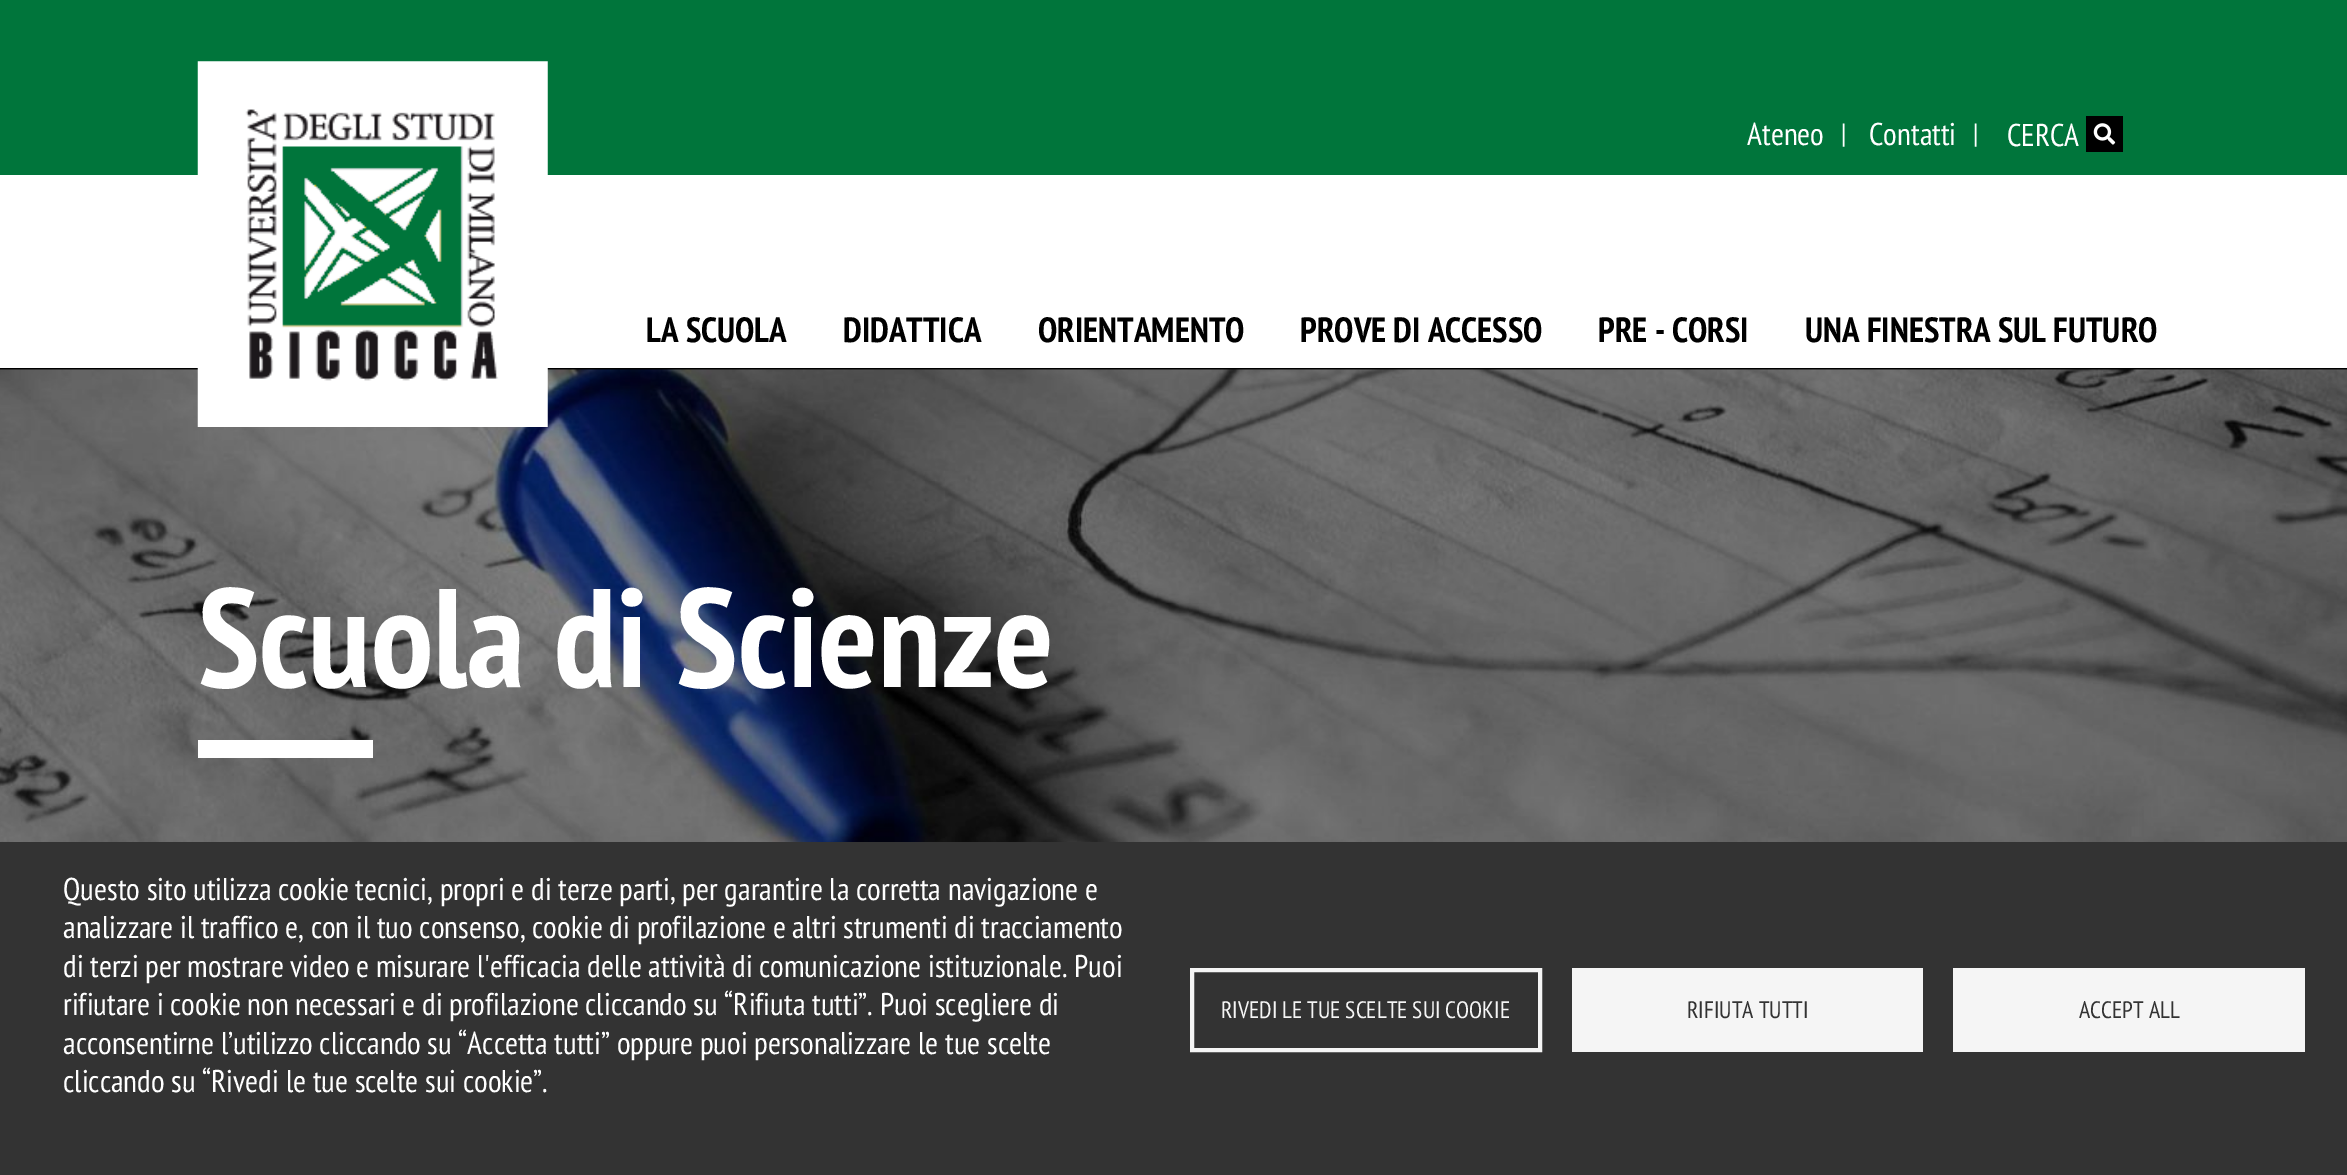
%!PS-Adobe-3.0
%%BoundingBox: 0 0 2347 1175
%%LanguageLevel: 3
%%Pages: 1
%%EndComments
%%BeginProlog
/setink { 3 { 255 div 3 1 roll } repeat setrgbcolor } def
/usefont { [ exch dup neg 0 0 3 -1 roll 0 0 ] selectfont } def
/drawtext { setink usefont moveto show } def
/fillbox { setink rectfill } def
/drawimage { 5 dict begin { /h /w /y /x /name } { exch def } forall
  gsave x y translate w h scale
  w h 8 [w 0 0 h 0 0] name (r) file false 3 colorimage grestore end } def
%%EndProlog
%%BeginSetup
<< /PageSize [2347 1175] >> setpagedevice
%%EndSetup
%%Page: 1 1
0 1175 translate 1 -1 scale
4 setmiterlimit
0 0 2347 1175 255 255 255 fillbox
0 368 2347 2 0 0 0 fillbox
0 0 2347 175 0 117 59 fillbox
(assets/img3.rgb) 0 369 2347 473 drawimage
(assets/img1.rgb) 197 61 351 366 drawimage
(Ateneo) 1747 145 /PTSansNarrow-Regular 31.5 255 255 255 drawtext
(|) 1841 143 /PTSansNarrow-Regular 28 255 255 255 drawtext
(Contatti) 1869 145 /PTSansNarrow-Regular 31.5 255 255 255 drawtext
(|) 1973 143 /PTSansNarrow-Regular 28 255 255 255 drawtext
(CERCA) 2007 146 /PTSansNarrow-Regular 31.5 255 255 255 drawtext
2086 116 37 36 0 0 0 fillbox
(assets/img2.rgb) 2093 123 23 22 drawimage
(LA SCUOLA) 646 342 /PTSansNarrow-Bold 35 0 0 0 drawtext
(DIDATTICA) 843 342 /PTSansNarrow-Bold 35 0 0 0 drawtext
(ORIENTAMENTO) 1038 342 /PTSansNarrow-Bold 35 0 0 0 drawtext
(PROVE DI ACCESSO) 1300 342 /PTSansNarrow-Bold 35 0 0 0 drawtext
(PRE - CORSI) 1598 342 /PTSansNarrow-Bold 35 0 0 0 drawtext
(UNA FINESTRA SUL FUTURO) 1805 342 /PTSansNarrow-Bold 35 0 0 0 drawtext
0 842 2347 333 51 51 51 fillbox
(Questo sito utilizza cookie tecnici, propri e di terze parti, per garantire la corretta navigazione e) 63 900 /PTSansNarrow-Regular 31.5 255 255 255 drawtext
(analizzare il traffico e, con il tuo consenso, cookie di profilazione e altri strumenti di tracciamento) 63 938 /PTSansNarrow-Regular 31.5 255 255 255 drawtext
(di terzi per mostrare video e misurare l'efficacia delle attività di comunicazione istituzionale. Puoi) 63 977 /PTSansNarrow-Regular 31.5 255 255 255 drawtext
(rifiutare i cookie non necessari e di profilazione cliccando su “Rifiuta tutti”. Puoi scegliere di) 63 1015 /PTSansNarrow-Regular 31.5 255 255 255 drawtext
(acconsentirne l’utilizzo cliccando su “Accetta tutti” oppure puoi personalizzare le tue scelte) 63 1054 /PTSansNarrow-Regular 31.5 255 255 255 drawtext
(cliccando su “Rivedi le tue scelte sui cookie”.) 63 1092 /PTSansNarrow-Regular 31.5 255 255 255 drawtext
245 245 245 setink
4 setlinewidth
1192 970 348 80 rectstroke
(RIVEDI LE TUE SCELTE SUI COOKIE) 1221 1018 /PTSansNarrow-Regular 23.75 245 245 245 drawtext
1572 968 351 84 245 245 245 fillbox
(RIFIUTA TUTTI) 1687 1018 /PTSansNarrow-Regular 23.75 51 51 51 drawtext
1953 968 352 84 245 245 245 fillbox
(ACCEPT ALL) 2079 1018 /PTSansNarrow-Regular 23.75 51 51 51 drawtext
(Scuola di Scienze) 198 687 /PTSansNarrow-Bold 140 255 255 255 drawtext
198 740 175 18 255 255 255 fillbox
showpage
%%EOF
